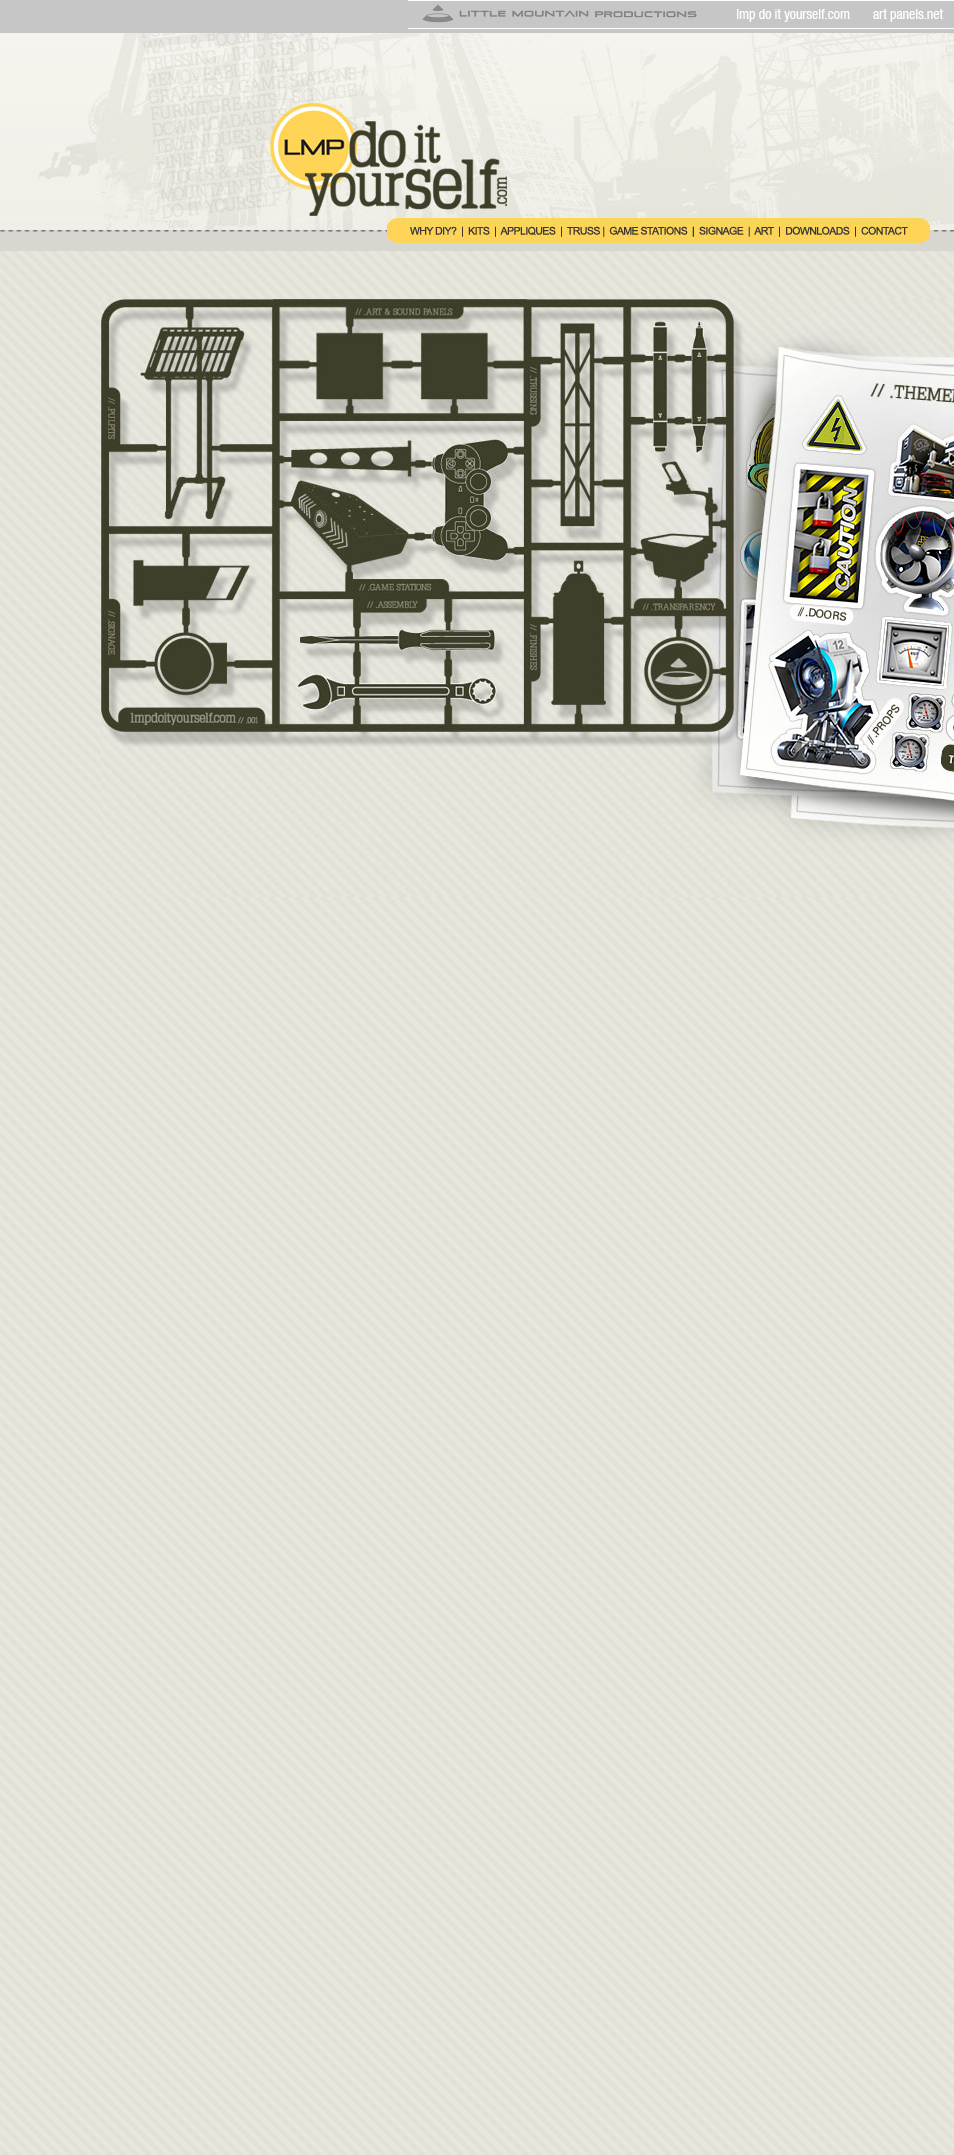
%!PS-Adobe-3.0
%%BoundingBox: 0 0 954 2155
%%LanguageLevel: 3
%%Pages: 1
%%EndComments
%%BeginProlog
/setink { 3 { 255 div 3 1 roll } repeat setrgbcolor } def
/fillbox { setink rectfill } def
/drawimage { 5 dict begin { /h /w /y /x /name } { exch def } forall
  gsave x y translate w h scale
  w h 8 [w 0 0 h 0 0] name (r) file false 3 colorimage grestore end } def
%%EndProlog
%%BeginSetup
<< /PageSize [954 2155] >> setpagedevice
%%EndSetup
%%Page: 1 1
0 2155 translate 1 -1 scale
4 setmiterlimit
0 0 954 2155 255 255 255 fillbox
(assets/img1.rgb) 0 251 954 1904 drawimage
0 0 954 33 198 198 198 fillbox
(assets/img2.rgb) 408 0 317 29 drawimage
(assets/img3.rgb) 725 0 134 29 drawimage
(assets/img4.rgb) 859 0 95 29 drawimage
(assets/img5.rgb) 0 33 954 183 drawimage
(assets/img6.rgb) 0 216 402 35 drawimage
(assets/img7.rgb) 402 216 60 35 drawimage
(assets/img8.rgb) 462 216 34 35 drawimage
(assets/img9.rgb) 496 216 65 35 drawimage
(assets/img10.rgb) 561 216 43 35 drawimage
(assets/img11.rgb) 604 216 88 35 drawimage
(assets/img12.rgb) 692 216 56 35 drawimage
(assets/img13.rgb) 748 216 32 35 drawimage
(assets/img14.rgb) 780 216 75 35 drawimage
(assets/img15.rgb) 855 216 64 35 drawimage
(assets/img16.rgb) 919 216 35 35 drawimage
(assets/img17.rgb) 101 299 172 229 drawimage
(assets/img18.rgb) 273 299 254 116 drawimage
(assets/img19.rgb) 527 299 100 245 drawimage
(assets/img20.rgb) 627 299 104 315 drawimage
(assets/img21.rgb) 731 299 223 85 drawimage
(assets/img22.rgb) 273 415 254 182 drawimage
(assets/img23.rgb) 731 384 38 408 drawimage
(assets/img24.rgb) 769 384 185 408 drawimage
(assets/img25.rgb) 101 528 172 196 drawimage
(assets/img26.rgb) 273 597 254 127 drawimage
(assets/img27.rgb) 527 544 100 180 drawimage
(assets/img28.rgb) 627 614 104 110 drawimage
(assets/img29.rgb) 101 724 630 173 drawimage
(assets/img30.rgb) 731 792 223 105 drawimage
showpage
%%EOF
